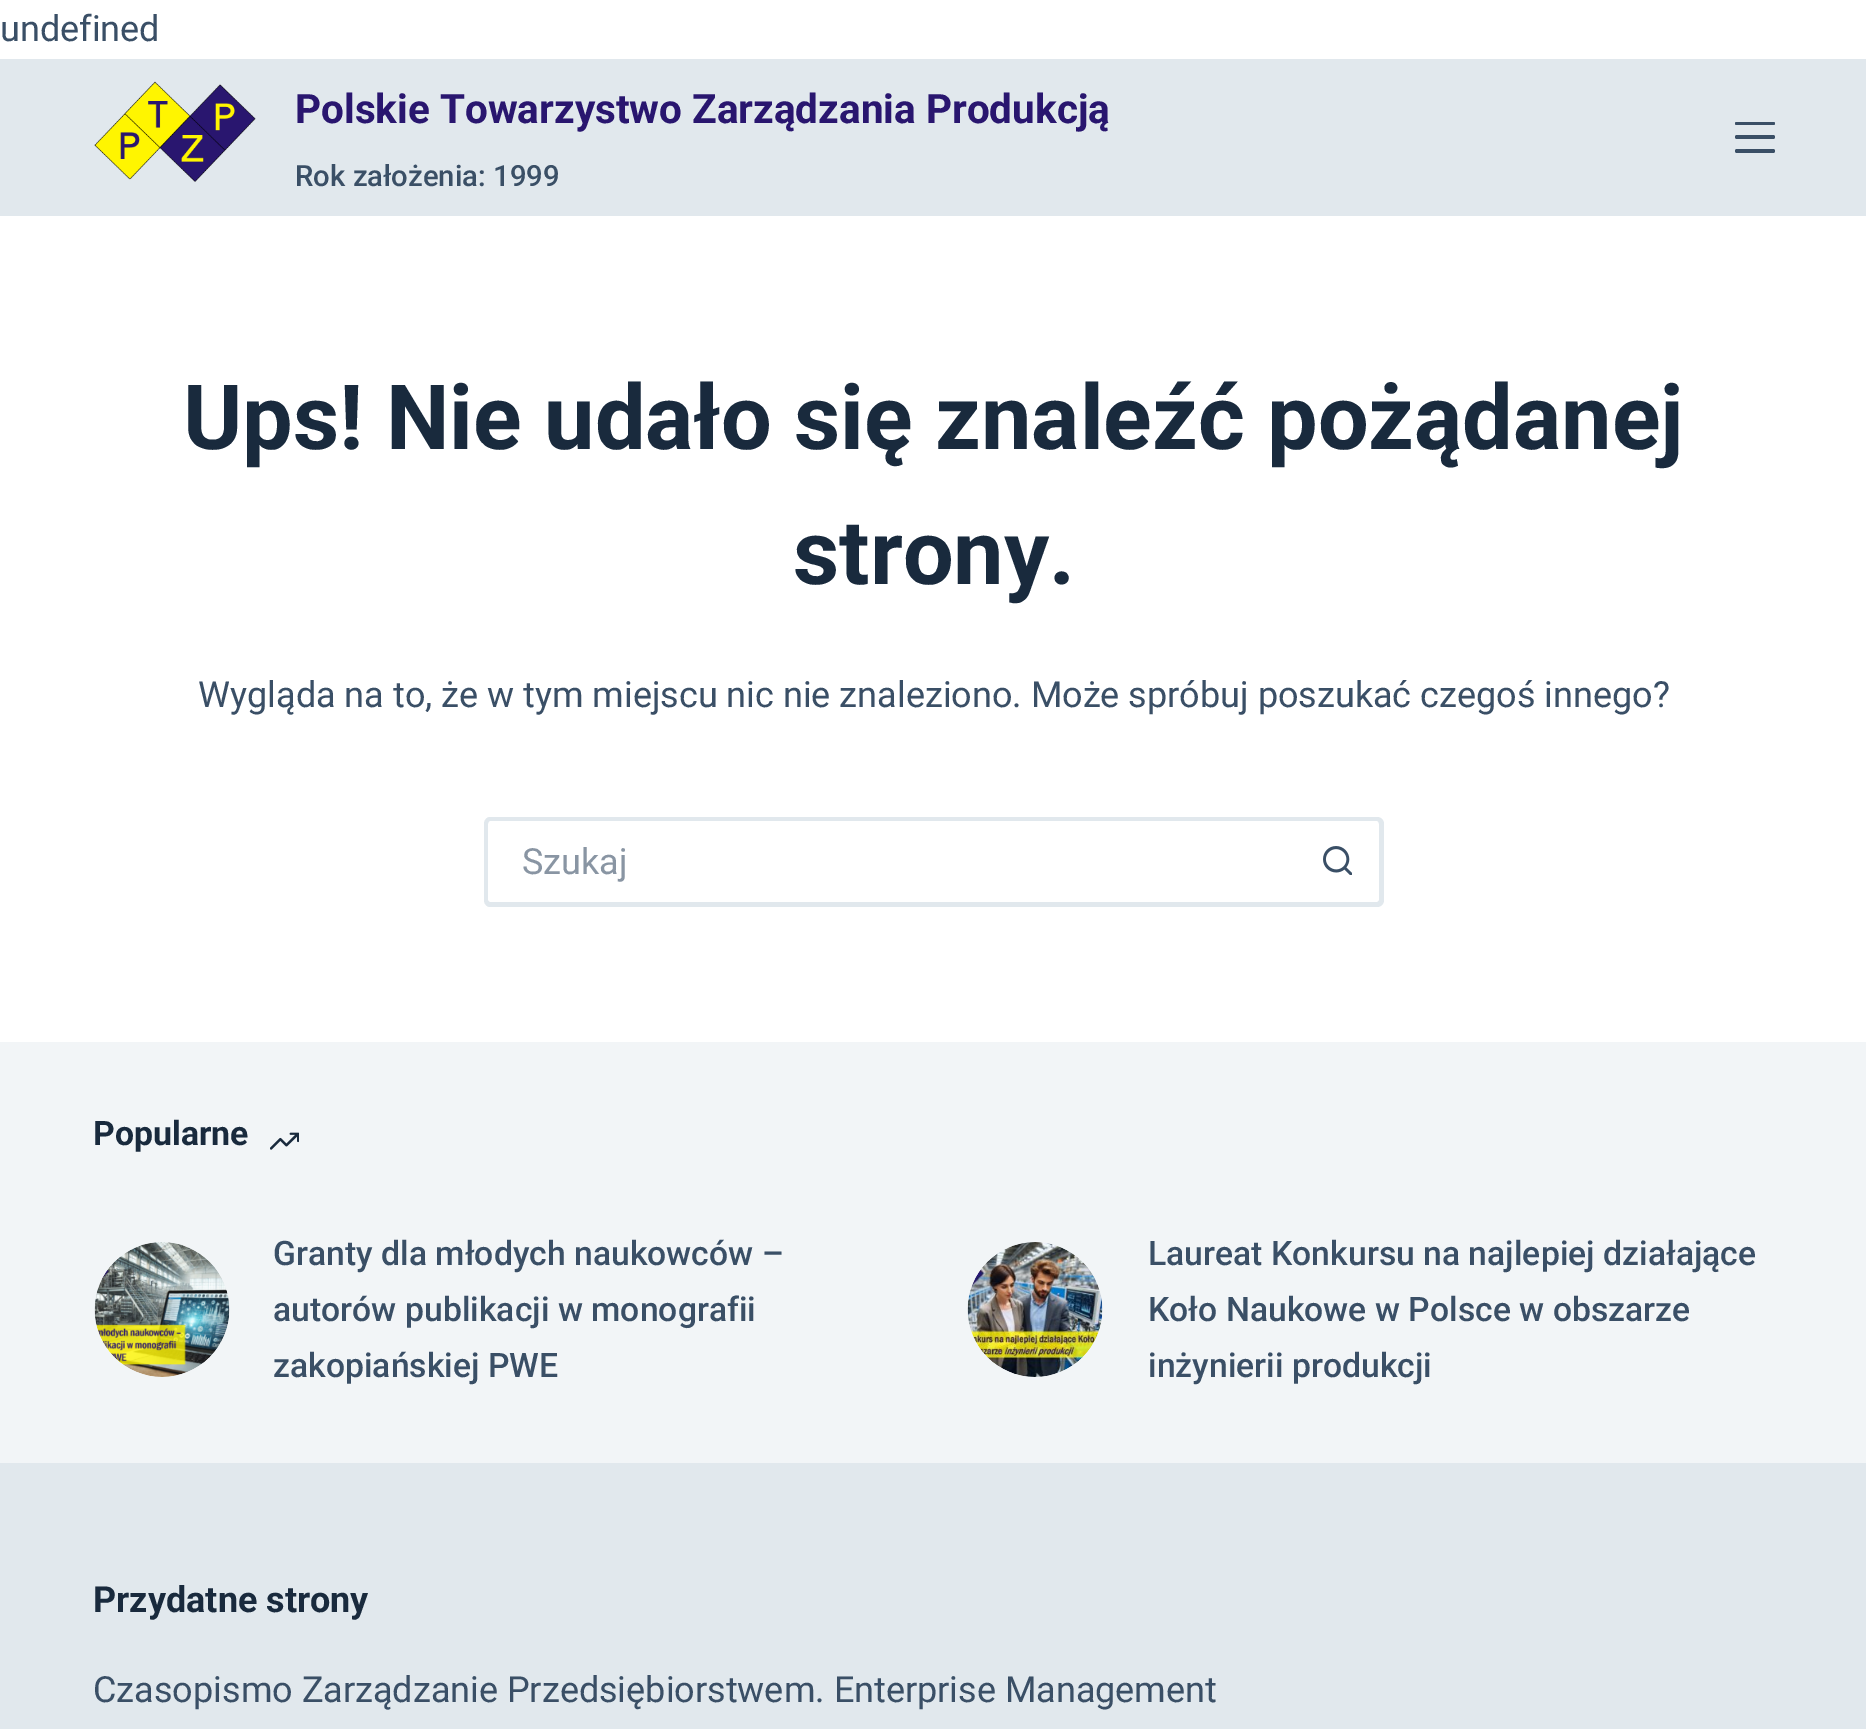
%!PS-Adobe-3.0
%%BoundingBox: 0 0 1866 1729
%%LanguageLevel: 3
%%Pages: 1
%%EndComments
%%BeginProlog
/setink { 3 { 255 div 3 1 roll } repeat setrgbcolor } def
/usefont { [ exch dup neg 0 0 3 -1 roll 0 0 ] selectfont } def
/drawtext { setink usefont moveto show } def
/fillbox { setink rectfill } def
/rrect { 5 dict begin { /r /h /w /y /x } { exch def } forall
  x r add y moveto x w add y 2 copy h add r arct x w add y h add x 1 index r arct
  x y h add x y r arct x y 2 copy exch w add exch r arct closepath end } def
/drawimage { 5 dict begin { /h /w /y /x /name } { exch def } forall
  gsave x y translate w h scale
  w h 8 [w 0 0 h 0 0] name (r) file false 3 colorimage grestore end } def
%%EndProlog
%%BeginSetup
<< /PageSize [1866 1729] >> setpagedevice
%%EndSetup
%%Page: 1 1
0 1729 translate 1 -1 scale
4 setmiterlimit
0 0 1866 1729 255 255 255 fillbox
(undefined) 0 41 /Roboto-Regular 36 58 79 102 drawtext
0 59 1866 157 225 232 237 fillbox
(assets/img1.rgb) 94 81 162 101 drawimage
(Polskie Towarzystwo Zarządzania Produkcją) 295 123 /Roboto-Bold 40.5 41 22 111 drawtext
(Rok założenia: 1999) 295 186 /Roboto-Medium 29.25 58 79 102 drawtext
1735 122 40 3 1.5 rrect fill
1735 135 40 4 2 rrect fill
1735 149 40 4 2 rrect fill
(Ups! Nie udało się znaleźć pożądanej) 183 449 /Roboto-Bold 90 25 42 61 drawtext
(strony.) 793 584 /Roboto-Bold 90 25 42 61 drawtext
(Wygląda na to, że w tym miejscu nic nie znaleziono. Może spróbuj poszukać czegoś innego?) 198 707 /Roboto-Regular 36 58 79 102 drawtext
225 232 237 setink
490 817 moveto 1294 817 lineto 1294 907 lineto 490 907 lineto 487 907 484 904 484 900 curveto 484 824 lineto 484 820 487 817 490 817 curveto closepath 490 821 moveto 1294 821 lineto 1294 902 lineto 490 902 lineto 489 902 488 901 488 900 curveto 488 824 lineto 488 822 489 821 490 821 curveto closepath eofill
(Szukaj) 522 874 /Roboto-Regular 36 137 149 163 drawtext
225 232 237 setink
1294 817 moveto 1377 817 lineto 1381 817 1384 820 1384 824 curveto 1384 900 lineto 1384 904 1381 907 1377 907 curveto 1294 907 lineto closepath 1294 821 moveto 1377 821 lineto 1378 821 1379 822 1379 824 curveto 1379 900 lineto 1379 901 1378 902 1377 902 curveto 1294 902 lineto closepath eofill
(assets/img2.rgb) 1323 846 29 29 drawimage
0 1042 1866 421 242 245 247 fillbox
(Popularne) 93 1145 /Roboto-Bold 33.75 25 42 61 drawtext
(assets/img3.rgb) 270 1132 29 18 drawimage
(assets/img4.rgb) 94 1242 136 135 drawimage
(Granty dla młodych naukowców –) 273 1265 /Roboto-Medium 33.75 58 79 102 drawtext
(autorów publikacji w monografii) 273 1321 /Roboto-Medium 33.75 58 79 102 drawtext
(zakopiańskiej PWE) 273 1377 /Roboto-Medium 33.75 58 79 102 drawtext
(assets/img5.rgb) 967 1242 136 135 drawimage
(Laureat Konkursu na najlepiej działające) 1148 1265 /Roboto-Medium 33.75 58 79 102 drawtext
(Koło Naukowe w Polsce w obszarze) 1148 1321 /Roboto-Medium 33.75 58 79 102 drawtext
(inżynierii produkcji) 1148 1377 /Roboto-Medium 33.75 58 79 102 drawtext
0 1463 1866 266 225 232 237 fillbox
(Przydatne strony) 93 1612 /Roboto-Bold 36 25 42 61 drawtext
(Czasopismo Zarządzanie Przedsiębiorstwem. Enterprise Management) 93 1702 /Roboto-Regular 36 58 79 102 drawtext
showpage
%%EOF
